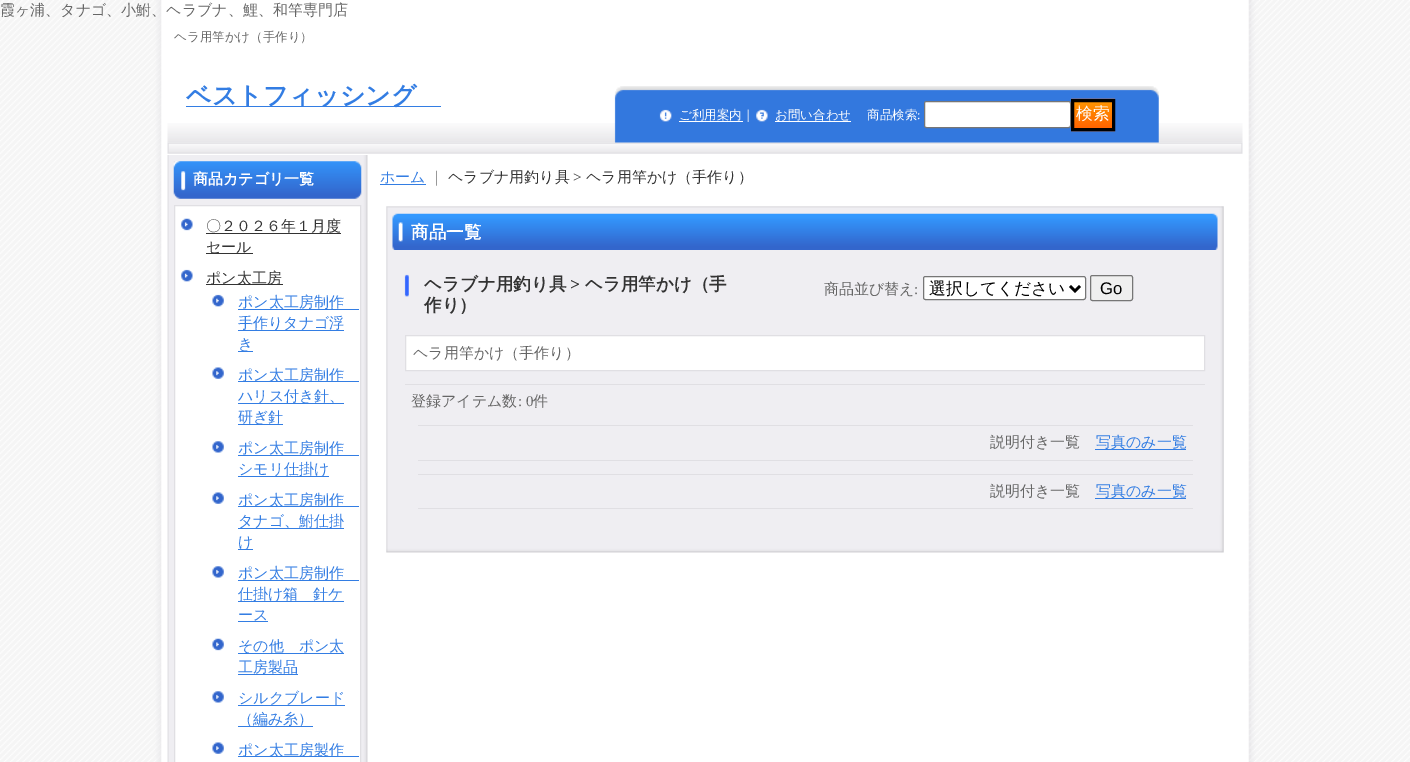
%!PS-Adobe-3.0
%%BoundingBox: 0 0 1410 762
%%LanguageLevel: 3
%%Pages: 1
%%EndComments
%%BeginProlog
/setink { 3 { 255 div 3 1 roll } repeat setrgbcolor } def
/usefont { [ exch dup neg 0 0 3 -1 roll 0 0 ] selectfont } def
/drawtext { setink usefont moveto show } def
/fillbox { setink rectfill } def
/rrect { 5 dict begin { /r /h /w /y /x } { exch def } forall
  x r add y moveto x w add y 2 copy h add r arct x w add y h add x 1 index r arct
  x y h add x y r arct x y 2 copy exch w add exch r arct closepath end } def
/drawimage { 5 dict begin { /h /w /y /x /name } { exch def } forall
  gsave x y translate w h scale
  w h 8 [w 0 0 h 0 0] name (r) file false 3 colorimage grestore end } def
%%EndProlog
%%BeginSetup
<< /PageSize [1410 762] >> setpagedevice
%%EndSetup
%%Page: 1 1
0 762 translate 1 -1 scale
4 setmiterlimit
0 0 1410 762 255 255 255 fillbox
(assets/img1.rgb) 0 0 1410 762 drawimage
(霞ヶ浦、タナゴ、小鮒、ヘラブナ、鯉、和竿専門店) 0 15 /WenQuanYiZenHei-Medium 15 102 102 102 drawtext
(ヘラ用竿かけ（手作り）) 174 41 /WenQuanYiZenHei-Medium 12.5 102 102 102 drawtext
(assets/img2.rgb) 167 123 1076 20 drawimage
186 106 255 1 51 125 227 fillbox
(ベストフィッシング) 186 104 /WenQuanYiZenHei-Bold 25 51 125 227 drawtext
(assets/img7.rgb) 167 142 1076 12 drawimage
(assets/img3.rgb) 614 86 545 57 drawimage
(assets/img4.rgb) 659 109 13 13 drawimage
679 121 64 1 255 255 255 fillbox
(ご利用案内｜) 679 119 /WenQuanYiZenHei-Medium 12.5 255 255 255 drawtext
(assets/img5.rgb) 756 109 12 13 drawimage
(お問い合わせ) 775 119 /WenQuanYiZenHei-Medium 12.5 255 255 255 drawtext
775 121 76 1 255 255 255 fillbox
(商品検索) 867 119 /WenQuanYiZenHei-Medium 12.5 255 255 255 drawtext
(:) 917 119 /LiberationSerif-Regular 12.5 255 255 255 drawtext
924.5 101.5 146 26 2 rrect gsave fill grestore
118 118 118 setink
stroke
(assets/img6.rgb) 1071 98 44 34 drawimage
0 0 0 setink
3 setlinewidth
1072.5 100.5 41 29 rectstroke
(検索) 1076 119 /WenQuanYiZenHei-Medium 16.75 255 255 255 drawtext
(assets/img8.rgb) 167 155 201 607 drawimage
(assets/img9.rgb) 173 161 189 38 drawimage
(商品カテゴリ一覧) 193 184 /WenQuanYiZenHei-Bold 15 255 255 255 drawtext
174.5 205.5 moveto 360.5 205.5 lineto 360.5 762.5 lineto 174.5 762.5 lineto closepath gsave fill grestore
224 223 227 setink
1 setlinewidth
stroke
(assets/img10.rgb) 181 218 12 13 drawimage
(〇２０２６年１月度) 206 231 /WenQuanYiZenHei-Medium 15 51 51 51 drawtext
206 233 135 1 51 51 51 fillbox
206 253 47 1 51 51 51 fillbox
(セール) 206 252 /WenQuanYiZenHei-Medium 15 51 51 51 drawtext
(assets/img11.rgb) 181 269 12 13 drawimage
206 284 77 1 51 51 51 fillbox
(ポン太工房) 206 283 /WenQuanYiZenHei-Medium 15 51 51 51 drawtext
(assets/img12.rgb) 212 294 12 13 drawimage
238 309 121 1 51 125 227 fillbox
(ポン太工房制作) 238 307 /WenQuanYiZenHei-Medium 15 51 125 227 drawtext
238 330 106 1 51 125 227 fillbox
(手作りタナゴ浮) 238 328 /WenQuanYiZenHei-Medium 15 51 125 227 drawtext
238 351 15 1 51 125 227 fillbox
(き) 238 349 /WenQuanYiZenHei-Medium 15 51 125 227 drawtext
(assets/img13.rgb) 212 367 12 12 drawimage
238 381 121 1 51 125 227 fillbox
(ポン太工房制作) 238 380 /WenQuanYiZenHei-Medium 15 51 125 227 drawtext
238 403 106 1 51 125 227 fillbox
(ハリス付き針、) 238 401 /WenQuanYiZenHei-Medium 15 51 125 227 drawtext
238 424 45 1 51 125 227 fillbox
(研ぎ針) 238 422 /WenQuanYiZenHei-Medium 15 51 125 227 drawtext
(assets/img14.rgb) 212 441 12 12 drawimage
238 455 121 1 51 125 227 fillbox
(ポン太工房制作) 238 453 /WenQuanYiZenHei-Medium 15 51 125 227 drawtext
238 476 91 1 51 125 227 fillbox
(シモリ仕掛け) 238 474 /WenQuanYiZenHei-Medium 15 51 125 227 drawtext
(assets/img13.rgb) 212 492 12 12 drawimage
238 506 121 1 51 125 227 fillbox
(ポン太工房制作) 238 505 /WenQuanYiZenHei-Medium 15 51 125 227 drawtext
238 528 106 1 51 125 227 fillbox
(タナゴ、鮒仕掛) 238 526 /WenQuanYiZenHei-Medium 15 51 125 227 drawtext
238 549 15 1 51 125 227 fillbox
(け) 238 547 /WenQuanYiZenHei-Medium 15 51 125 227 drawtext
(assets/img14.rgb) 212 566 12 12 drawimage
238 580 121 1 51 125 227 fillbox
(ポン太工房制作) 238 578 /WenQuanYiZenHei-Medium 15 51 125 227 drawtext
238 601 106 1 51 125 227 fillbox
(仕掛け箱　針ケ) 238 599 /WenQuanYiZenHei-Medium 15 51 125 227 drawtext
(ース) 238 620 /WenQuanYiZenHei-Medium 15 51 125 227 drawtext
238 621 30 1 51 125 227 fillbox
(assets/img15.rgb) 212 638 12 13 drawimage
238 653 106 1 51 125 227 fillbox
(その他　ポン太) 238 651 /WenQuanYiZenHei-Medium 15 51 125 227 drawtext
(工房製品) 238 672 /WenQuanYiZenHei-Medium 15 51 125 227 drawtext
238 674 60 1 51 125 227 fillbox
(assets/img14.rgb) 212 691 12 12 drawimage
(シルクブレード) 238 703 /WenQuanYiZenHei-Medium 15 51 125 227 drawtext
238 705 107 1 51 125 227 fillbox
238 726 75 1 51 125 227 fillbox
(（編み糸）) 238 724 /WenQuanYiZenHei-Medium 15 51 125 227 drawtext
(assets/img13.rgb) 212 742 12 12 drawimage
238 756 121 1 51 125 227 fillbox
(ポン太工房製作) 238 755 /WenQuanYiZenHei-Medium 15 51 125 227 drawtext
(ホーム) 380 182 /WenQuanYiZenHei-Medium 15 51 125 227 drawtext
380 184 46 1 51 125 227 fillbox
(｜) 429 182 /WenQuanYiZenHei-Medium 15 153 153 153 drawtext
(ヘラブナ用釣り具) 448 182 /WenQuanYiZenHei-Medium 15 51 51 51 drawtext
(>) 573 182 /LiberationSerif-Regular 15 51 51 51 drawtext
(ヘラ用竿かけ（手作り）) 586 182 /WenQuanYiZenHei-Medium 15 51 51 51 drawtext
(assets/img16.rgb) 386 206 838 44 drawimage
(商品一覧) 411 238 /WenQuanYiZenHei-Bold 17.5 255 255 255 drawtext
(assets/img17.rgb) 386 250 838 265 drawimage
(assets/img18.rgb) 404 274 5 23 drawimage
(ヘラブナ用釣り具) 424 290 /WenQuanYiZenHei-Bold 17.5 51 51 51 drawtext
(>) 570 290 /LiberationSerif-Bold 17.5 51 51 51 drawtext
(ヘラ用竿かけ（手) 585 290 /WenQuanYiZenHei-Bold 17.5 51 51 51 drawtext
(作り）) 424 311 /WenQuanYiZenHei-Bold 17.5 51 51 51 drawtext
(商品並び替え) 824 294 /WenQuanYiZenHei-Medium 15 102 102 102 drawtext
(:) 914 294 /LiberationSerif-Regular 15 102 102 102 drawtext
255 255 255 setink
923.5 276.5 162 23 2 rrect gsave fill grestore
118 118 118 setink
stroke
0 0 0 setink
2.5 setlinewidth
1070 286 moveto 1075 291 lineto 1080 286 lineto stroke
(選択してください) 929 294 /WenQuanYiZenHei-Medium 16.75 0 0 0 drawtext
239 239 239 setink
1090.5 275.5 42 25 2 rrect gsave fill grestore
118 118 118 setink
1 setlinewidth
stroke
(Go) 1100 294 /LiberationSans-Regular 16.75 0 0 0 drawtext
255 255 255 setink
405.5 335.5 moveto 1204.5 335.5 lineto 1204.5 370.5 lineto 405.5 370.5 lineto closepath gsave fill grestore
224 223 227 setink
stroke
(ヘラ用竿かけ（手作り）) 413 358 /WenQuanYiZenHei-Medium 15 102 102 102 drawtext
405 384 800 1 224 223 227 fillbox
(登録アイテム数) 411 406 /WenQuanYiZenHei-Medium 15 102 102 102 drawtext
(: 0) 518 406 /LiberationSerif-Regular 15 102 102 102 drawtext
(件) 533 406 /WenQuanYiZenHei-Medium 15 102 102 102 drawtext
418 425 775 1 224 223 227 fillbox
418 460 775 1 224 223 227 fillbox
(説明付き一覧) 990 447 /WenQuanYiZenHei-Medium 15 102 102 102 drawtext
1095 449 91 1 51 125 227 fillbox
(写真のみ一覧) 1096 447 /WenQuanYiZenHei-Medium 15 51 125 227 drawtext
418 474 775 1 224 223 227 fillbox
418 508 775 1 224 223 227 fillbox
(説明付き一覧) 990 496 /WenQuanYiZenHei-Medium 15 102 102 102 drawtext
1095 498 91 1 51 125 227 fillbox
(写真のみ一覧) 1096 496 /WenQuanYiZenHei-Medium 15 51 125 227 drawtext
(assets/img19.rgb) 386 515 838 38 drawimage
showpage
%%EOF
